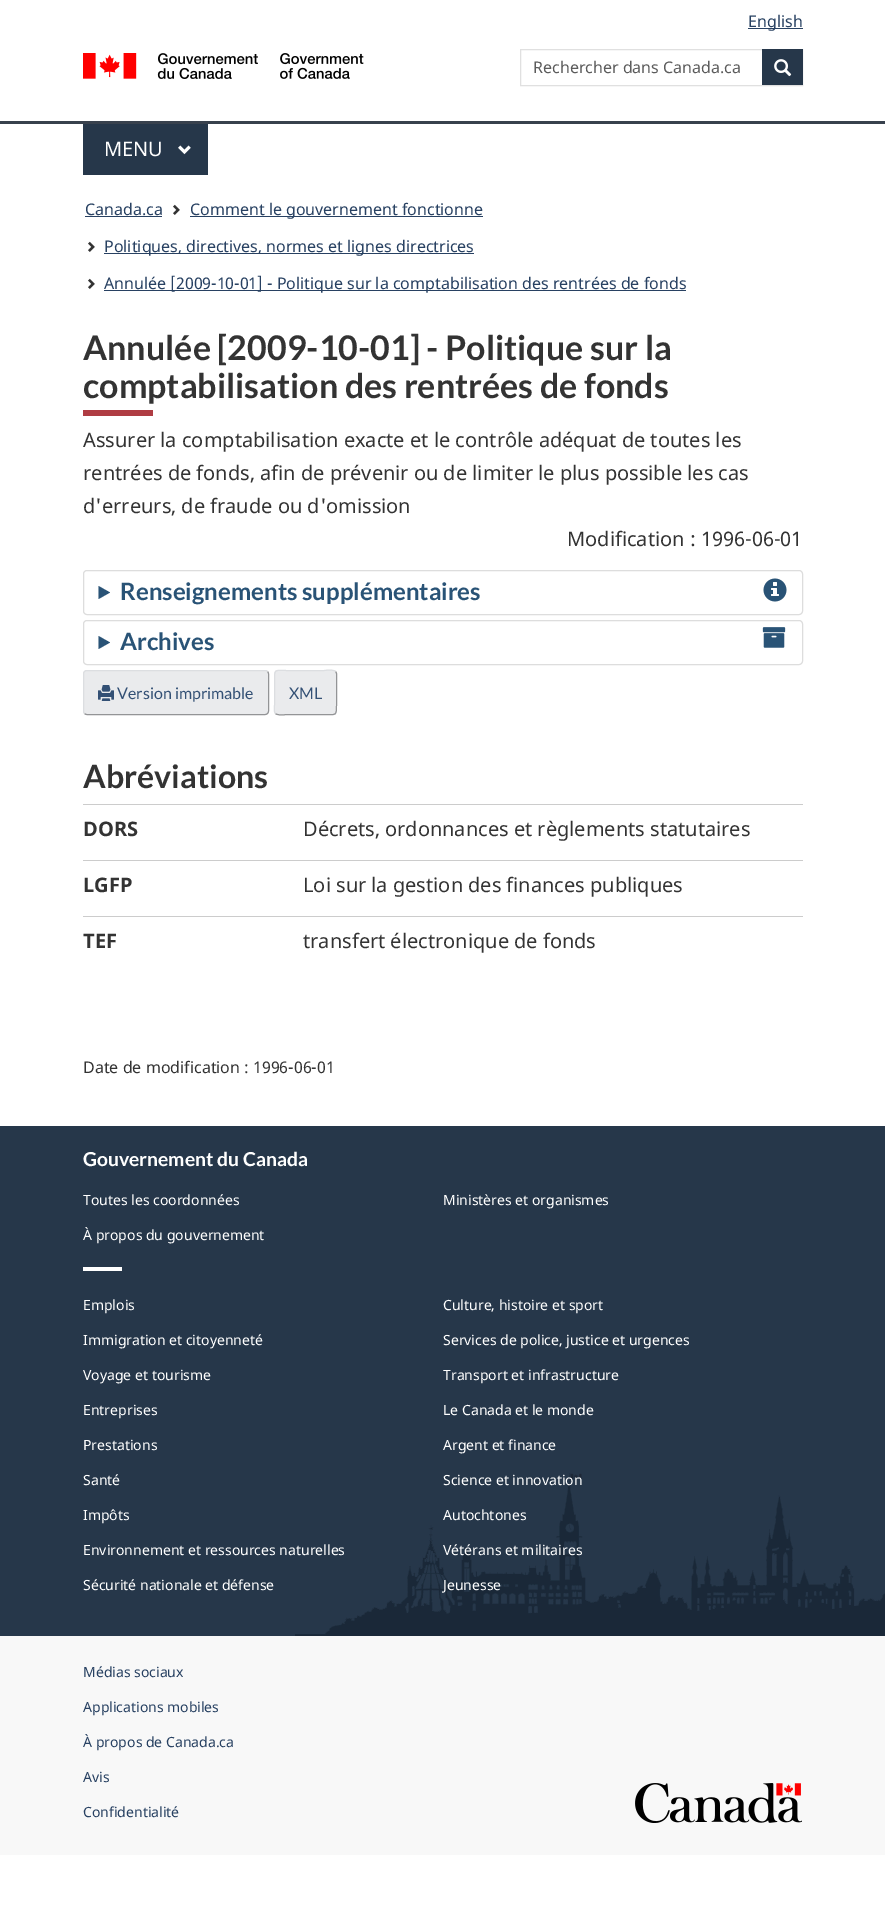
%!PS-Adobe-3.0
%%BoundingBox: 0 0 885 1920
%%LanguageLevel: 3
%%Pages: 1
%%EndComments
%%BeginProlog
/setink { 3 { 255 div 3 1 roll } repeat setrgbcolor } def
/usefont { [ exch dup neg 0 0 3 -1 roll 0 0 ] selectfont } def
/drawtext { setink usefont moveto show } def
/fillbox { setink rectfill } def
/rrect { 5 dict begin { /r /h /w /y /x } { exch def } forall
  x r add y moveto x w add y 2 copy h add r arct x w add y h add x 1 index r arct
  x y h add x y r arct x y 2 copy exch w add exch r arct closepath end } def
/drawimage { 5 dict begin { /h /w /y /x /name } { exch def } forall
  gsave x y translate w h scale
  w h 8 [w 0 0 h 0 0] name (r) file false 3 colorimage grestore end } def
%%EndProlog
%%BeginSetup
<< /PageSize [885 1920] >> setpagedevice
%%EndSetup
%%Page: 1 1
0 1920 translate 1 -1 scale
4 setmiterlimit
0 0 885 1920 255 255 255 fillbox
748 28 55 1 40 65 98 fillbox
(English) 748 27 /NotoSans-Regular 16 40 65 98 drawtext
(assets/img1.rgb) 83 53 281 26 drawimage
224 224 224 setink
520.5 49.5 282 36 rectstroke
(Rechercher dans Canada.ca) 533 73 /NotoSans-Regular 16 92 92 92 drawtext
762 49 41 36 38 55 74 fillbox
(assets/img2.rgb) 774 59 18 18 drawimage
0 121 885 3 56 65 77 fillbox
83 124 125 51 38 55 74 fillbox
(MENU) 104 156 /NotoSans-Regular 20 255 255 255 drawtext
(assets/img3.rgb) 178 145 13 10 drawimage
(Canada.ca) 85 215 /NotoSans-Regular 16 40 65 98 drawtext
85 216 77 1 40 65 98 fillbox
(assets/img4.rgb) 173 204 7 11 drawimage
190 216 293 1 40 65 98 fillbox
(Comment le gouvernement fonctionne) 190 215 /NotoSans-Regular 16 40 65 98 drawtext
(assets/img4.rgb) 88 241 7 11 drawimage
104 253 370 1 40 65 98 fillbox
(Politiques, directives, normes et lignes directrices) 104 252 /NotoSans-Regular 16 40 65 98 drawtext
(assets/img4.rgb) 88 278 7 11 drawimage
104 290 582 1 40 65 98 fillbox
(Annulée [2009-10-01] - Politique sur la comptabilisation des rentrées de fonds) 104 289 /NotoSans-Regular 16 40 65 98 drawtext
83 410 70 6 175 60 67 fillbox
(Annulée [2009-10-01] - Politique sur la) 83 360 /Lato-Bold 34 51 51 51 drawtext
(comptabilisation des rentrées de fonds) 83 398 /Lato-Bold 34 51 51 51 drawtext
(Assurer la comptabilisation exacte et le contrôle adéquat de toutes les) 83 447 /NotoSans-Regular 20 51 51 51 drawtext
(rentrées de fonds, afin de prévenir ou de limiter le plus possible les cas) 83 480 /NotoSans-Regular 20 51 51 51 drawtext
(d'erreurs, de fraude ou d'omission) 83 513 /NotoSans-Regular 20 51 51 51 drawtext
(Modification : 1996-06-01) 567 546 /NotoSans-Regular 20 51 51 51 drawtext
221 221 221 setink
83.5 570.5 719 44 3.5 rrect stroke
41 83 118 setink
98.5 586 moveto 110 592.5 lineto 98.5 599 lineto closepath fill
(Renseignements supplémentaires) 120 600 /Lato-Bold 24 41 83 118 drawtext
(assets/img5.rgb) 763 578 24 24 drawimage
221 221 221 setink
83.5 620.5 719 44 3.5 rrect stroke
41 83 118 setink
98.5 636 moveto 110 642.5 lineto 98.5 649 lineto closepath fill
(Archives) 120 650 /Lato-Bold 24 41 83 118 drawtext
(assets/img6.rgb) 762 627 24 21 drawimage
234 235 237 setink
83 670 186 45 4 rrect fill
147 148 150 setink
267.5 671.5 moveto 268 672 268.5 673 268.5 674 curveto 268.5 711 lineto 268.5 712 268 713 267.5 713.5 curveto 267 714 266 714.5 265 714.5 curveto 87 714.5 lineto 86 714.5 85 714 84.5 713.5 curveto stroke
220 222 225 setink
84.5 713.5 moveto 84 713 83.5 712 83.5 711 curveto 83.5 674 lineto 83.5 673 84 672 84.5 671.5 curveto 85 671 86 670.5 87 670.5 curveto 265 670.5 lineto 266 670.5 267 671 267.5 671.5 curveto stroke
(assets/img7.rgb) 98 685 16 16 drawimage
(Version imprimable) 117 699 /Lato-Regular 16 51 80 117 drawtext
234 235 237 setink
274 670 63 45 4 rrect fill
147 148 150 setink
335.5 671.5 moveto 337.5 673.5 336.5 678.5 336.5 680 curveto 336.5 705 lineto 336.5 716.5 336 714.5 324 714.5 curveto 287 714.5 lineto 286.5 714.5 278 716 275.5 713.5 curveto stroke
220 222 225 setink
275.5 713.5 moveto 273.5 711.5 274.5 706.5 274.5 705 curveto 274.5 680 lineto 274.5 668.5 275 670.5 287 670.5 curveto 324 670.5 lineto 324.5 670.5 333 669 335.5 671.5 curveto stroke
(XML) 289 699 /Lato-Regular 16 51 80 117 drawtext
(Abréviations) 83 788 /Lato-Bold 32 51 51 51 drawtext
(DORS) 83 836 /NotoSans-Bold 20 51 51 51 drawtext
83 804 720 1 204 204 204 fillbox
(Décrets, ordonnances et règlements statutaires) 303 836 /NotoSans-Regular 20 51 51 51 drawtext
(LGFP) 83 892 /NotoSans-Bold 20 51 51 51 drawtext
83 860 720 1 204 204 204 fillbox
(Loi sur la gestion des finances publiques) 303 892 /NotoSans-Regular 20 51 51 51 drawtext
(TEF) 83 948 /NotoSans-Bold 20 51 51 51 drawtext
83 916 720 1 204 204 204 fillbox
(transfert électronique de fonds) 303 948 /NotoSans-Regular 20 51 51 51 drawtext
(Date de modification :) 83 1073 /NotoSans-Regular 16 51 51 51 drawtext
(1996-06-01) 253 1073 /NotoSans-Regular 16 51 51 51 drawtext
0 1126 885 510 38 55 74 fillbox
(assets/img8.rgb) 295 1473 590 163 drawimage
(Gouvernement du Canada) 83 1166 /Lato-Bold 19.25 255 255 255 drawtext
(Toutes les coordonnées) 83 1205 /NotoSans-Regular 14 255 255 255 drawtext
(Ministères et organismes) 443 1205 /NotoSans-Regular 14 255 255 255 drawtext
(À propos du gouvernement) 83 1240 /NotoSans-Regular 14 255 255 255 drawtext
83 1267 39 4 255 255 255 fillbox
(Emplois) 83 1310 /NotoSans-Regular 14 255 255 255 drawtext
(Culture, histoire et sport) 443 1310 /NotoSans-Regular 14 255 255 255 drawtext
(Immigration et citoyenneté) 83 1345 /NotoSans-Regular 14 255 255 255 drawtext
(Services de police, justice et urgences) 443 1345 /NotoSans-Regular 14 255 255 255 drawtext
(Voyage et tourisme) 83 1380 /NotoSans-Regular 14 255 255 255 drawtext
(Transport et infrastructure) 443 1380 /NotoSans-Regular 14 255 255 255 drawtext
(Entreprises) 83 1415 /NotoSans-Regular 14 255 255 255 drawtext
(Le Canada et le monde) 443 1415 /NotoSans-Regular 14 255 255 255 drawtext
(Prestations) 83 1450 /NotoSans-Regular 14 255 255 255 drawtext
(Argent et finance) 443 1450 /NotoSans-Regular 14 255 255 255 drawtext
(Santé) 83 1485 /NotoSans-Regular 14 255 255 255 drawtext
(Science et innovation) 443 1485 /NotoSans-Regular 14 255 255 255 drawtext
(Impôts) 83 1520 /NotoSans-Regular 14 255 255 255 drawtext
(Autochtones) 443 1520 /NotoSans-Regular 14 255 255 255 drawtext
(Environnement et ressources naturelles) 83 1555 /NotoSans-Regular 14 255 255 255 drawtext
(Vétérans et militaires) 443 1555 /NotoSans-Regular 14 255 255 255 drawtext
(Sécurité nationale et défense) 83 1590 /NotoSans-Regular 14 255 255 255 drawtext
(Jeunesse) 443 1590 /NotoSans-Regular 14 255 255 255 drawtext
0 1636 885 219 248 248 248 fillbox
(Médias sociaux) 83 1677 /NotoSans-Regular 14 40 65 98 drawtext
(Applications mobiles) 83 1712 /NotoSans-Regular 14 40 65 98 drawtext
(À propos de Canada.ca) 83 1747 /NotoSans-Regular 14 40 65 98 drawtext
(Avis) 83 1782 /NotoSans-Regular 14 40 65 98 drawtext
(Confidentialité) 83 1817 /NotoSans-Regular 14 40 65 98 drawtext
(assets/img9.rgb) 635 1783 167 40 drawimage
showpage
%%EOF
